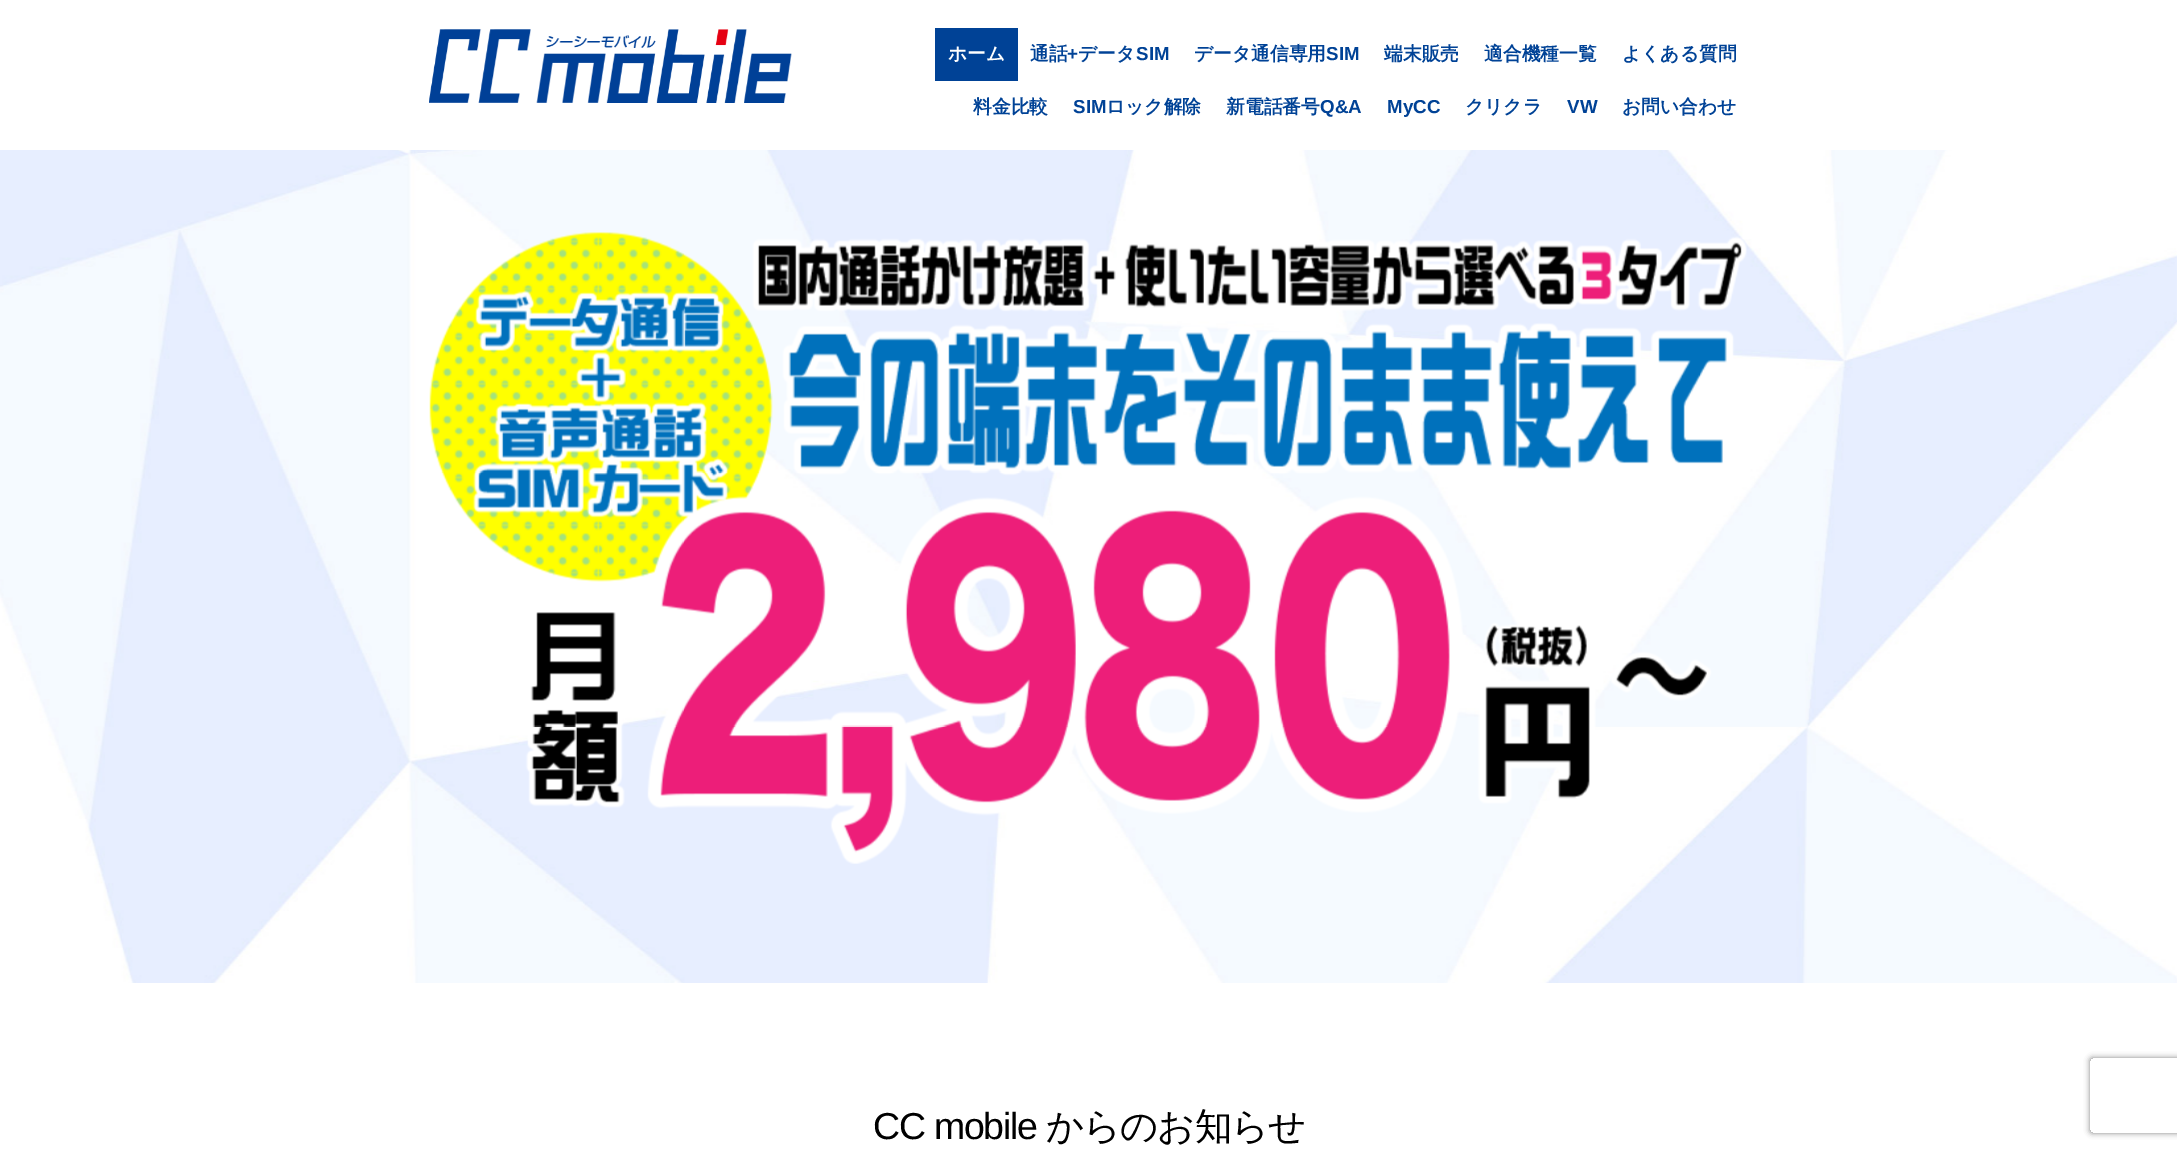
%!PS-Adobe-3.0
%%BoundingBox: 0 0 2177 1149
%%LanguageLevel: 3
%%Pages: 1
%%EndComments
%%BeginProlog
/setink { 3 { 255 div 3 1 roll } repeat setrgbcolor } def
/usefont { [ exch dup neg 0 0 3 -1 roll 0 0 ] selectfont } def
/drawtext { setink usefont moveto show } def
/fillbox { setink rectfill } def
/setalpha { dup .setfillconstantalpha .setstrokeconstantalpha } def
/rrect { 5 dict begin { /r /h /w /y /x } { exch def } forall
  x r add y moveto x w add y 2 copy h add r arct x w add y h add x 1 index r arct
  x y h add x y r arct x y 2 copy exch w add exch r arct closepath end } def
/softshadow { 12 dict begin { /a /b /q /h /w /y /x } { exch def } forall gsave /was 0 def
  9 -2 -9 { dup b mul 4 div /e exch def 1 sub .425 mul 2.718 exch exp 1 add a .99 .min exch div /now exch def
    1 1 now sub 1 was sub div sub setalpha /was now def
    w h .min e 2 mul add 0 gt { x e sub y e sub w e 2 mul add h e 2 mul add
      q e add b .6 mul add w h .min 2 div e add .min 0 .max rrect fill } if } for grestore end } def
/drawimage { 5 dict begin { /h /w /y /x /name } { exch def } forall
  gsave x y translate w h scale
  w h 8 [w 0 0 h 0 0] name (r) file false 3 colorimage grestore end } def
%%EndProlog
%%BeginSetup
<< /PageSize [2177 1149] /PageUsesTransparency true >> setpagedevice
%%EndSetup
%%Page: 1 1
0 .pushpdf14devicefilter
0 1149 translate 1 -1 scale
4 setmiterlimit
0 0 2177 1149 255 255 255 fillbox
(assets/img1.rgb) 429 29 363 74 drawimage
935 28 83 53 0 66 150 fillbox
(ホーム) 948 60 /WenQuanYiZenHei-Bold 18.75 255 255 255 drawtext
(通話) 1030 60 /WenQuanYiZenHei-Bold 18.75 0 66 150 drawtext
(+) 1067 60 /LiberationSans-Bold 18.75 0 66 150 drawtext
(データ) 1078 60 /WenQuanYiZenHei-Bold 18.75 0 66 150 drawtext
(SIM) 1136 60 /LiberationSans-Bold 18.75 0 66 150 drawtext
(データ通信専用) 1194 60 /WenQuanYiZenHei-Bold 18.75 0 66 150 drawtext
(SIM) 1326 60 /LiberationSans-Bold 18.75 0 66 150 drawtext
(端末販売) 1384 60 /WenQuanYiZenHei-Bold 18.75 0 66 150 drawtext
(適合機種一覧) 1484 60 /WenQuanYiZenHei-Bold 18.75 0 66 150 drawtext
(よくある質問) 1622 60 /WenQuanYiZenHei-Bold 18.75 0 66 150 drawtext
(料金比較) 973 113 /WenQuanYiZenHei-Bold 18.75 0 66 150 drawtext
(SIM) 1073 113 /LiberationSans-Bold 18.75 0 66 150 drawtext
(ロック解除) 1106 113 /WenQuanYiZenHei-Bold 18.75 0 66 150 drawtext
(新電話番号) 1226 113 /WenQuanYiZenHei-Bold 18.75 0 66 150 drawtext
(Q&A) 1320 113 /LiberationSans-Bold 18.75 0 66 150 drawtext
(MyCC) 1387 113 /LiberationSans-Bold 18.75 0 66 150 drawtext
(クリクラ) 1465 113 /WenQuanYiZenHei-Bold 18.75 0 66 150 drawtext
(VW) 1567 113 /LiberationSans-Bold 18.75 0 66 150 drawtext
(お問い合わせ) 1622 113 /WenQuanYiZenHei-Bold 18.75 0 66 150 drawtext
(assets/img2.rgb) 0 150 2177 833 drawimage
(assets/img3.rgb) 429 232 1318 632 drawimage
/LiberationSans-Regular 37.5 usefont
0 0 0 setink
873 1139 moveto -1.25 0 (CC mobile) ashow
/WenQuanYiZenHei-Medium 37.5 usefont
1046 1139 moveto -1.25 0 (からのお知らせ) ashow
gsave
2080 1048 moveto 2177 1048 lineto 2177 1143 lineto 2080 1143 lineto closepath 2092.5 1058 moveto 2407.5 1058 lineto 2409 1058 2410 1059 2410 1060.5 curveto 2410 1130.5 lineto 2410 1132 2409 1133 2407.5 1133 curveto 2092.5 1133 lineto 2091 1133 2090 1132 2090 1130.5 curveto 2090 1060.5 lineto 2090 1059 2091 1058 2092.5 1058 curveto closepath eoclip newpath
128 128 128 setink
2090 1058 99 75 2.5 3 1 softshadow
grestore
.poppdf14devicefilter showpage
%%EOF
